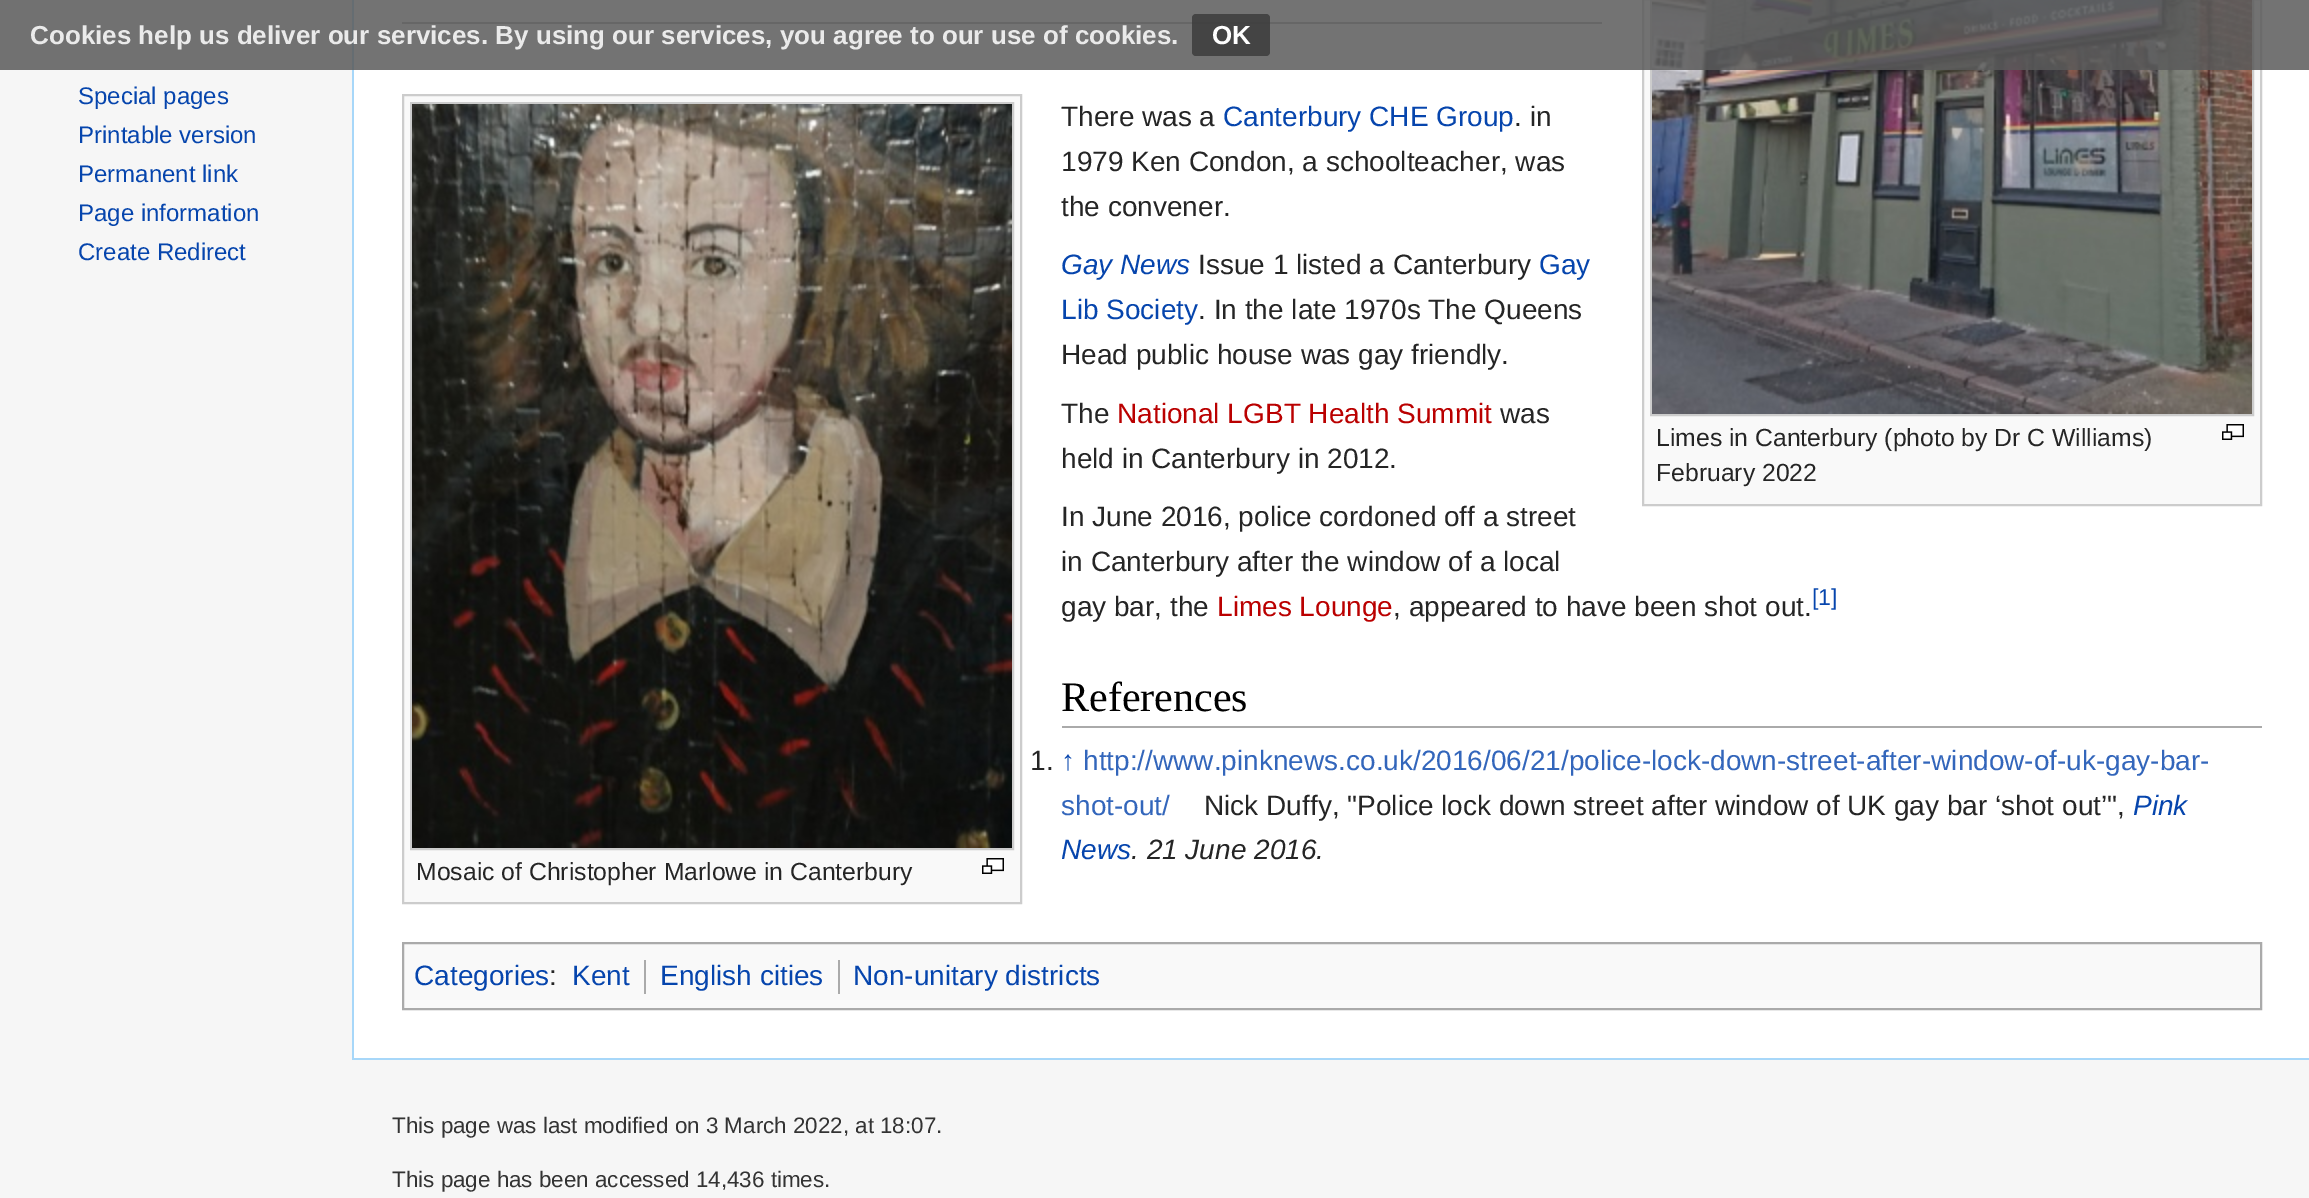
%!PS-Adobe-3.0
%%BoundingBox: 0 0 2309 1198
%%LanguageLevel: 3
%%Pages: 1
%%EndComments
%%BeginProlog
/setink { 3 { 255 div 3 1 roll } repeat setrgbcolor } def
/usefont { [ exch dup neg 0 0 3 -1 roll 0 0 ] selectfont } def
/drawtext { setink usefont moveto show } def
/fillbox { setink rectfill } def
/setalpha { dup .setfillconstantalpha .setstrokeconstantalpha } def
/rrect { 5 dict begin { /r /h /w /y /x } { exch def } forall
  x r add y moveto x w add y 2 copy h add r arct x w add y h add x 1 index r arct
  x y h add x y r arct x y 2 copy exch w add exch r arct closepath end } def
/drawimage { 5 dict begin { /h /w /y /x /name } { exch def } forall
  gsave x y translate w h scale
  w h 8 [w 0 0 h 0 0] name (r) file false 3 colorimage grestore end } def
%%EndProlog
%%BeginSetup
<< /PageSize [2309 1198] /PageUsesTransparency true >> setpagedevice
%%EndSetup
%%Page: 1 1
0 .pushpdf14devicefilter
0 1198 translate 1 -1 scale
4 setmiterlimit
0 0 2309 1198 246 246 246 fillbox
354 0 1955 1058 255 255 255 fillbox
352 1058 1957 2 167 215 249 fillbox
352 0 2 1060 167 215 249 fillbox
402 22 1200 2 170 170 170 fillbox
249 249 249 setink
1643 -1 moveto 2261 -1 lineto 2261 505 lineto 1643 505 lineto closepath gsave fill grestore
204 204 204 setink
2 setlinewidth
stroke
1651 -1 602 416 rectstroke
(assets/img1.rgb) 1652 0 600 414 drawimage
0.85 setalpha
0 0 2309 70 90 90 90 fillbox
1 setalpha
(Cookies help us deliver our services. By using our services, you agree to our use of cookies.) 30 44 /LiberationSans-Bold 26 234 234 234 drawtext
0.85 setalpha
60 60 60 setink
1192 14 78 42 4 rrect fill
1 setalpha
(OK) 1212 44 /LiberationSans-Bold 26 255 255 255 drawtext
(Special pages) 78 104 /LiberationSans-Regular 24 6 69 173 drawtext
(Printable version) 78 143 /LiberationSans-Regular 24 6 69 173 drawtext
(Permanent link) 78 182 /LiberationSans-Regular 24 6 69 173 drawtext
(Page information) 78 221 /LiberationSans-Regular 24 6 69 173 drawtext
(Create Redirect) 78 260 /LiberationSans-Regular 24 6 69 173 drawtext
(There was a) 1061 126 /LiberationSans-Regular 28 37 37 37 drawtext
(Canterbury CHE Group) 1223 126 /LiberationSans-Regular 28 6 69 173 drawtext
(. in) 1514 126 /LiberationSans-Regular 28 37 37 37 drawtext
(1979 Ken Condon, a schoolteacher, was) 1061 171 /LiberationSans-Regular 28 37 37 37 drawtext
(the convener.) 1061 216 /LiberationSans-Regular 28 37 37 37 drawtext
(Gay News) 1061 274 /LiberationSans-Italic 28 6 69 173 drawtext
(Issue 1 listed a Canterbury) 1198 274 /LiberationSans-Regular 28 37 37 37 drawtext
(Gay) 1539 274 /LiberationSans-Regular 28 6 69 173 drawtext
(Lib Society) 1061 319 /LiberationSans-Regular 28 6 69 173 drawtext
(. In the late 1970s The Queens) 1198 319 /LiberationSans-Regular 28 37 37 37 drawtext
(Head public house was gay friendly.) 1061 364 /LiberationSans-Regular 28 37 37 37 drawtext
(The) 1061 423 /LiberationSans-Regular 28 37 37 37 drawtext
(National LGBT Health Summit) 1117 423 /LiberationSans-Regular 28 186 0 0 drawtext
(was) 1500 423 /LiberationSans-Regular 28 37 37 37 drawtext
(held in Canterbury in 2012.) 1061 468 /LiberationSans-Regular 28 37 37 37 drawtext
(Limes in Canterbury \(photo by Dr C Williams\)) 1656 446 /LiberationSans-Regular 24.75 37 37 37 drawtext
(assets/img2.rgb) 2222 424 22 16 drawimage
(February 2022) 1656 481 /LiberationSans-Regular 24.75 37 37 37 drawtext
(In June 2016, police cordoned off a street) 1061 526 /LiberationSans-Regular 28 37 37 37 drawtext
(in Canterbury after the window of a local) 1061 571 /LiberationSans-Regular 28 37 37 37 drawtext
(gay bar, the) 1061 616 /LiberationSans-Regular 28 37 37 37 drawtext
(Limes Lounge) 1217 616 /LiberationSans-Regular 28 186 0 0 drawtext
(, appeared to have been shot out.) 1393 616 /LiberationSans-Regular 28 37 37 37 drawtext
([1]) 1812 605 /LiberationSans-Regular 23 6 69 173 drawtext
1062 726 1200 2 170 170 170 fillbox
(References) 1061 711 /LiberationSerif-Regular 42 0 0 0 drawtext
(1.) 1030 770 /LiberationSans-Regular 28 37 37 37 drawtext
(↑) 1061 770 /LiberationSans-Regular 28 6 69 173 drawtext
(http://www.pinknews.co.uk/2016/06/21/police-lock-down-street-after-window-of-uk-gay-bar-) 1083 770 /LiberationSans-Regular 28 51 102 187 drawtext
(shot-out/) 1061 815 /LiberationSans-Regular 28 51 102 187 drawtext
(Nick Duffy, "Police lock down street after window of UK gay bar ‘shot out’",) 1204 815 /LiberationSans-Regular 28 37 37 37 drawtext
(Pink) 2133 815 /LiberationSans-Italic 28 6 69 173 drawtext
(News) 1061 859 /LiberationSans-Italic 28 6 69 173 drawtext
(. 21 June 2016.) 1131 859 /LiberationSans-Italic 28 37 37 37 drawtext
249 249 249 setink
403 95 moveto 1021 95 lineto 1021 903 lineto 403 903 lineto closepath gsave fill grestore
204 204 204 setink
stroke
411 103 602 746 rectstroke
(assets/img3.rgb) 412 104 600 744 drawimage
(Mosaic of Christopher Marlowe in Canterbury) 416 880 /LiberationSans-Regular 24.75 37 37 37 drawtext
(assets/img2.rgb) 982 858 22 16 drawimage
249 249 249 setink
403 943 moveto 2261 943 lineto 2261 1009 lineto 403 1009 lineto closepath gsave fill grestore
170 170 170 setink
stroke
(Categories) 414 985 /LiberationSans-Regular 28 6 69 173 drawtext
(:) 549 985 /LiberationSans-Regular 28 37 37 37 drawtext
(Kent) 572 985 /LiberationSans-Regular 28 6 69 173 drawtext
644 960 2 34 170 170 170 fillbox
(English cities) 660 985 /LiberationSans-Regular 28 6 69 173 drawtext
838 960 2 34 170 170 170 fillbox
(Non-unitary districts) 853 985 /LiberationSans-Regular 28 6 69 173 drawtext
(This page was last modified on 3 March 2022, at 18:07.) 392 1133 /LiberationSans-Regular 22.4 51 51 51 drawtext
(This page has been accessed 14,436 times.) 392 1187 /LiberationSans-Regular 22.4 51 51 51 drawtext
.poppdf14devicefilter showpage
%%EOF
